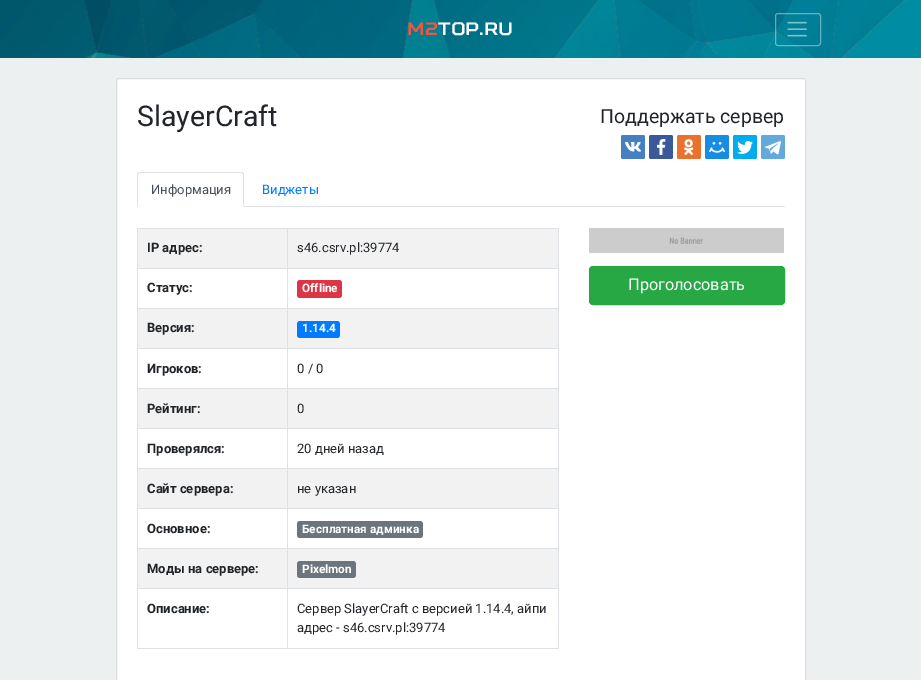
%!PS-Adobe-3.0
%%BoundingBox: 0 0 921 680
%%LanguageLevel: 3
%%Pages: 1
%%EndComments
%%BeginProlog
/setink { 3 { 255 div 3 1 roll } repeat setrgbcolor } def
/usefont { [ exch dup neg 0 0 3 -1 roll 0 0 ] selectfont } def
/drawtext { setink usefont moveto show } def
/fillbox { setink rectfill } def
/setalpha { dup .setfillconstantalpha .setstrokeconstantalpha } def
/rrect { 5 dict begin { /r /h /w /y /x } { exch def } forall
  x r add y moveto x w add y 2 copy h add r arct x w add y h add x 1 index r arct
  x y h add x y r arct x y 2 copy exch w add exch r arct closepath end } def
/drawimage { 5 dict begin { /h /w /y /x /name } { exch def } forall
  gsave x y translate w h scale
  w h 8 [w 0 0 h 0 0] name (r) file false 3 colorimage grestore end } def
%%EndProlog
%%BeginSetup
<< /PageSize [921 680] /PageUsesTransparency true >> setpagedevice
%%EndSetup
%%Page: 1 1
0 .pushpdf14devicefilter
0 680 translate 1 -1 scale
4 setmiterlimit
0 0 921 680 236 240 241 fillbox
(assets/img1.rgb) 0 0 921 58 drawimage
(M2) 407 35 /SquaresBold-Bold 18 235 88 68 drawtext
(Top.ru) 438 35 /SquaresBold-Bold 18 255 255 255 drawtext
0.4 setalpha
775.5 13.5 45 32 2.5 rrect stroke
1 setalpha
(assets/img2.rgb) 787 21 20 16 drawimage
116.5 78.5 689 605 2.5 rrect gsave fill grestore
221 221 221 setink
stroke
(SlayerCraft) 137 126 /Roboto-Regular 28.5 33 37 41 drawtext
(Поддержать сервер) 600 123 /Roboto-Regular 19.5 33 37 41 drawtext
70 128 194 setink
621 135 24 24 2 rrect fill
(assets/img3.rgb) 625 142 16 10 drawimage
59 89 152 setink
649 135 24 24 2 rrect fill
(assets/img4.rgb) 657 139 9 16 drawimage
235 114 46 setink
677 135 24 24 2 rrect fill
(assets/img5.rgb) 684 139 10 16 drawimage
22 141 226 setink
705 135 24 24 2 rrect fill
(assets/img6.rgb) 709 142 16 11 drawimage
0 172 237 setink
733 135 24 24 2 rrect fill
(assets/img7.rgb) 737 141 16 13 drawimage
100 169 220 setink
761 135 24 24 2 rrect fill
(assets/img8.rgb) 765 141 16 14 drawimage
244 206 541 1 222 226 230 fillbox
140 172 moveto 138 173 lineto 139 174 lineto 140 173 lineto 224 173 lineto 241 173 lineto 242 174 lineto 243 173 lineto 241 172 lineto closepath fill
244 207 moveto 244 175 lineto 244 174 244 173 243 173 curveto 242.5 173.5 lineto 243 175 lineto 243 206 lineto closepath fill
255 255 255 setink
244 207 moveto 243 206 lineto 138 206 lineto 137 207 lineto closepath fill
222 226 230 setink
137 207 moveto 138 206 lineto 138 175 lineto 138.5 173.5 lineto 138 173 lineto 137 173 137 174 137 175 curveto closepath fill
(Информация) 151 194 /Roboto-Regular 13 73 80 87 drawtext
(Виджеты) 262 194 /Roboto-Regular 13 0 123 255 drawtext
137 228 422 1 222 226 230 fillbox
558 228 1 421 222 226 230 fillbox
137 648 422 1 222 226 230 fillbox
137 228 1 421 222 226 230 fillbox
138 229 420 39 242 242 242 fillbox
(IP адрес:) 147 252 /Roboto-Bold 13 33 37 41 drawtext
287 268 272 1 222 226 230 fillbox
287 308 272 1 222 226 230 fillbox
138 309 420 39 242 242 242 fillbox
287 348 272 1 222 226 230 fillbox
287 388 272 1 222 226 230 fillbox
138 389 420 39 242 242 242 fillbox
287 428 272 1 222 226 230 fillbox
287 468 272 1 222 226 230 fillbox
138 469 420 39 242 242 242 fillbox
287 508 272 1 222 226 230 fillbox
287 548 272 1 222 226 230 fillbox
138 549 420 39 242 242 242 fillbox
287 588 272 1 222 226 230 fillbox
287 588 1 61 222 226 230 fillbox
137 588 151 1 222 226 230 fillbox
287 548 1 41 222 226 230 fillbox
137 548 151 1 222 226 230 fillbox
287 508 1 41 222 226 230 fillbox
137 508 151 1 222 226 230 fillbox
287 468 1 41 222 226 230 fillbox
137 468 151 1 222 226 230 fillbox
287 428 1 41 222 226 230 fillbox
137 428 151 1 222 226 230 fillbox
287 388 1 41 222 226 230 fillbox
137 388 151 1 222 226 230 fillbox
287 348 1 41 222 226 230 fillbox
137 348 151 1 222 226 230 fillbox
287 308 1 41 222 226 230 fillbox
137 308 151 1 222 226 230 fillbox
287 268 1 41 222 226 230 fillbox
137 268 151 1 222 226 230 fillbox
287 228 1 41 222 226 230 fillbox
(s46.csrv.pl:39774) 297 252 /Roboto-Regular 13 33 37 41 drawtext
(Статус:) 147 292 /Roboto-Bold 13 33 37 41 drawtext
220 53 69 setink
297 280 45 18 3 rrect fill
(Offline) 302 292 /Roboto-Bold 11.75 255 255 255 drawtext
(Версия:) 147 332 /Roboto-Bold 13 33 37 41 drawtext
0 123 255 setink
297 321 43 17 3 rrect fill
(1.14.4) 302 332 /Roboto-Bold 11.75 255 255 255 drawtext
(Игроков:) 147 373 /Roboto-Bold 13 33 37 41 drawtext
(0 / 0) 297 373 /Roboto-Regular 13 33 37 41 drawtext
(Рейтинг:) 147 413 /Roboto-Bold 13 33 37 41 drawtext
(0) 297 413 /Roboto-Regular 13 33 37 41 drawtext
(Проверялся:) 147 453 /Roboto-Bold 13 33 37 41 drawtext
(20 дней назад) 297 453 /Roboto-Regular 13 33 37 41 drawtext
(Сайт сервера:) 147 493 /Roboto-Bold 13 33 37 41 drawtext
(не указан) 297 493 /Roboto-Regular 13 33 37 41 drawtext
(Основное:) 147 533 /Roboto-Bold 13 33 37 41 drawtext
108 117 125 setink
297 521 126 17 3 rrect fill
(Бесплатная админка) 302 533 /Roboto-Bold 11.75 255 255 255 drawtext
(Моды на сервере:) 147 573 /Roboto-Bold 13 33 37 41 drawtext
108 117 125 setink
297 561 59 17 3 rrect fill
(Pixelmon) 302 573 /Roboto-Bold 11.75 255 255 255 drawtext
(Описание:) 147 613 /Roboto-Bold 13 33 37 41 drawtext
(Сервер SlayerCraft с версией 1.14.4, айпи) 297 613 /Roboto-Regular 13 33 37 41 drawtext
(адрес - s46.csrv.pl:39774) 297 632 /Roboto-Regular 13 33 37 41 drawtext
(assets/img9.rgb) 589 228 195 25 drawimage
40 167 69 setink
589.5 266.5 195 38 3.5 rrect gsave fill grestore
stroke
(Проголосовать) 628 290 /Roboto-Regular 16.25 255 255 255 drawtext
.poppdf14devicefilter showpage
%%EOF
